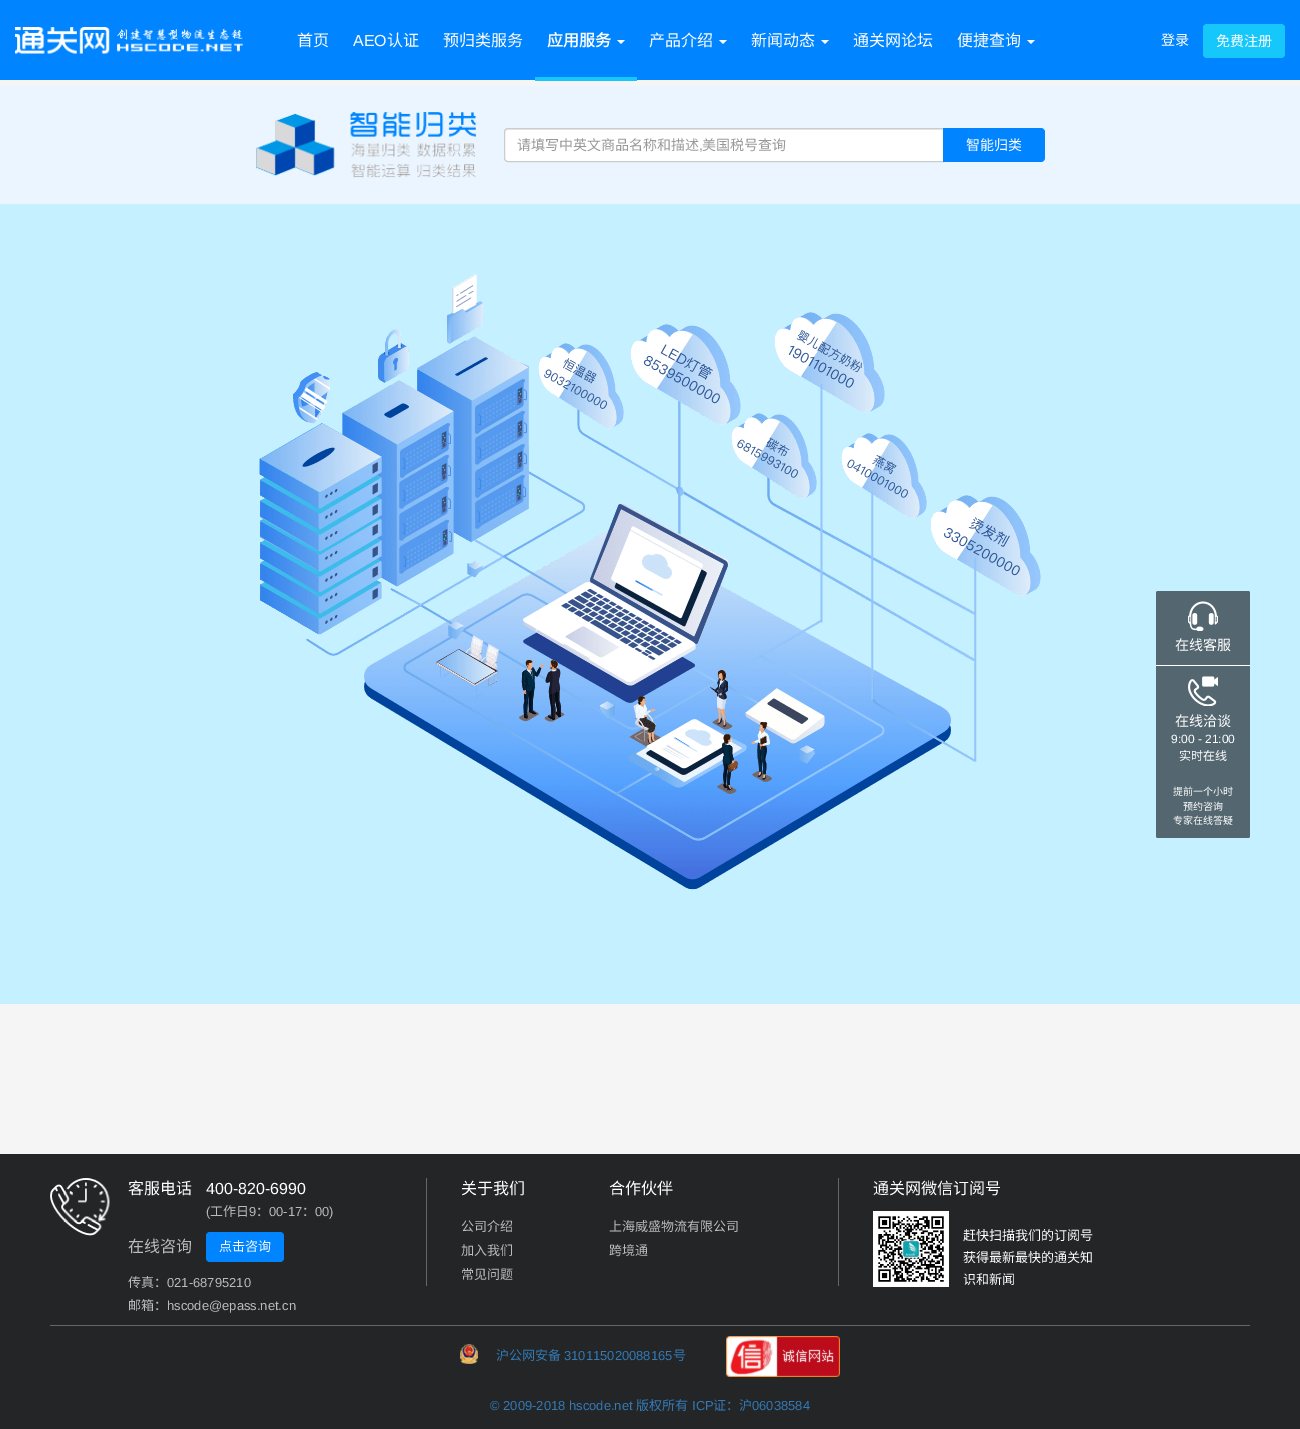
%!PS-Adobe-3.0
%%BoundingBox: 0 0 1300 1429
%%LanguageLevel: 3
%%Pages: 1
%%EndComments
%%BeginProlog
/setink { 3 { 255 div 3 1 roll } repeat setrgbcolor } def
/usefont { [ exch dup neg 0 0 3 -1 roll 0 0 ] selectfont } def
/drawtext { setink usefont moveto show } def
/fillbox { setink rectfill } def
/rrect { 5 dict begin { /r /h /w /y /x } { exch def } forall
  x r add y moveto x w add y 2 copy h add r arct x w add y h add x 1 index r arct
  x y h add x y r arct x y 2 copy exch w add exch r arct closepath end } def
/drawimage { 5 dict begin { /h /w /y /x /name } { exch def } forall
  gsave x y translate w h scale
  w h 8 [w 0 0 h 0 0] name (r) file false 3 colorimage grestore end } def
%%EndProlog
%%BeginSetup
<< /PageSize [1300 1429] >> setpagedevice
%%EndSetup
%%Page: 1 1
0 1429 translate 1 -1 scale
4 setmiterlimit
0 0 1300 1429 245 245 245 fillbox
0 0 1300 80 0 132 255 fillbox
(assets/img1.rgb) 15 27 228 27 drawimage
(首页) 297 46 /NotoSansCJKSC-Regular 16 255 255 255 drawtext
(AEO) 353 46 /LiberationSans-Regular 16 255 255 255 drawtext
(认证) 387 46 /NotoSansCJKSC-Regular 16 255 255 255 drawtext
(预归类服务) 443 46 /NotoSansCJKSC-Regular 16 255 255 255 drawtext
535 77 102 4 22 199 252 fillbox
(应用服务) 547 46 /NotoSansCJKSC-Bold 16 255 255 255 drawtext
617 40 moveto 625 40 lineto 621 44 lineto closepath fill
(产品介绍) 649 46 /NotoSansCJKSC-Regular 16 255 255 255 drawtext
719 40 moveto 727 40 lineto 723 44 lineto closepath fill
(新闻动态) 751 46 /NotoSansCJKSC-Regular 16 255 255 255 drawtext
821 40 moveto 829 40 lineto 825 44 lineto closepath fill
(通关网论坛) 853 46 /NotoSansCJKSC-Regular 16 255 255 255 drawtext
(便捷查询) 957 46 /NotoSansCJKSC-Regular 16 255 255 255 drawtext
1027 40 moveto 1035 40 lineto 1031 44 lineto closepath fill
(登录) 1161 45 /NotoSansCJKSC-Regular 14 255 255 255 drawtext
22 199 252 setink
1203 24 82 34 4 rrect fill
(免费注册) 1216 46 /NotoSansCJKSC-Regular 14 255 255 255 drawtext
0 86 1300 118 235 245 255 fillbox
(assets/img2.rgb) 256 112 221 66 drawimage
255 255 255 setink
508 128 moveto 944 128 lineto 944 162 lineto 508 162 lineto 506 162 504 160 504 158 curveto 504 132 lineto 504 130 506 128 508 128 curveto closepath fill
236 236 236 setink
508 130 moveto 943 130 lineto 943 129 lineto 508 129 lineto 506 129 505 131 505 133 curveto 505 131 506 130 508 130 curveto closepath fill
204 204 204 setink
508 128.5 moveto 943.5 128.5 lineto 943.5 161.5 lineto 508 161.5 lineto 506 161.5 504.5 160 504.5 158 curveto 504.5 132 lineto 504.5 130 506 128.5 508 128.5 curveto closepath stroke
(请填写中英文商品名称和描述) 517 150 /NotoSansCJKSC-Regular 14 153 153 153 drawtext
(,) 699 150 /LiberationSans-Regular 14 153 153 153 drawtext
(美国税号查询) 702 150 /NotoSansCJKSC-Regular 14 153 153 153 drawtext
0 132 255 setink
943 128 moveto 1041 128 lineto 1043 128 1045 130 1045 132 curveto 1045 158 lineto 1045 160 1043 162 1041 162 curveto 943 162 lineto closepath fill
(智能归类) 966 150 /NotoSansCJKSC-Regular 14 255 255 255 drawtext
0 204 1300 800 197 240 255 fillbox
(assets/img3.rgb) 259 274 782 616 drawimage
84 103 112 setink
1156 591 94 247 2 rrect fill
(assets/img4.rgb) 1188 601 30 30 drawimage
(在线客服) 1175 650 /NotoSansCJKSC-Regular 14 255 255 255 drawtext
1156 665 94 1 255 255 255 fillbox
(assets/img5.rgb) 1188 676 30 30 drawimage
(在线洽谈) 1175 726 /NotoSansCJKSC-Regular 14 255 255 255 drawtext
(9:00 - 21:00) 1171 743 /LiberationSans-Regular 12 255 255 255 drawtext
(实时在线) 1179 760 /NotoSansCJKSC-Regular 12 255 255 255 drawtext
(提前一个小时) 1173 795 /NotoSansCJKSC-Regular 10 255 255 255 drawtext
(预约咨询) 1183 810 /NotoSansCJKSC-Regular 10 255 255 255 drawtext
(专家在线答疑) 1173 824 /NotoSansCJKSC-Regular 10 255 255 255 drawtext
0 1154 1300 275 35 37 38 fillbox
(assets/img6.rgb) 50 1178 60 58 drawimage
(客服电话) 128 1194 /NotoSansCJKSC-Regular 16 255 255 255 drawtext
(400-820-6990) 206 1194 /LiberationSans-Regular 16 255 255 255 drawtext
(\() 206 1216 /LiberationSans-Regular 13 187 187 187 drawtext
(工作日) 210 1216 /NotoSansCJKSC-Regular 13 187 187 187 drawtext
(9) 249 1216 /LiberationSans-Regular 13 187 187 187 drawtext
(：) 256 1216 /NotoSansCJKSC-Regular 13 187 187 187 drawtext
(00-17) 269 1216 /LiberationSans-Regular 13 187 187 187 drawtext
(：) 302 1216 /NotoSansCJKSC-Regular 13 187 187 187 drawtext
(00\)) 315 1216 /LiberationSans-Regular 13 187 187 187 drawtext
(在线咨询) 128 1252 /NotoSansCJKSC-Regular 16 187 187 187 drawtext
0 132 255 setink
206 1232 78 30 4 rrect fill
(点击咨询) 219 1251 /NotoSansCJKSC-Regular 13 255 255 255 drawtext
(传真：) 128 1287 /NotoSansCJKSC-Regular 13 187 187 187 drawtext
(021-68795210) 167 1287 /LiberationSans-Regular 13 187 187 187 drawtext
(邮箱：) 128 1310 /NotoSansCJKSC-Regular 13 187 187 187 drawtext
(hscode@epass.net.cn) 167 1310 /LiberationSans-Regular 13 187 187 187 drawtext
426 1178 1 108 101 102 103 fillbox
(关于我们) 461 1194 /NotoSansCJKSC-Regular 16 255 255 255 drawtext
(公司介绍) 461 1231 /NotoSansCJKSC-Regular 13 187 187 187 drawtext
(加入我们) 461 1255 /NotoSansCJKSC-Regular 13 187 187 187 drawtext
(常见问题) 461 1279 /NotoSansCJKSC-Regular 13 187 187 187 drawtext
(合作伙伴) 609 1194 /NotoSansCJKSC-Regular 16 255 255 255 drawtext
(上海威盛物流有限公司) 609 1231 /NotoSansCJKSC-Regular 13 187 187 187 drawtext
(跨境通) 609 1255 /NotoSansCJKSC-Regular 13 187 187 187 drawtext
838 1178 1 108 101 102 103 fillbox
(通关网微信订阅号) 873 1194 /NotoSansCJKSC-Regular 16 255 255 255 drawtext
(assets/img7.rgb) 873 1211 76 76 drawimage
(赶快扫描我们的订阅号) 963 1240 /NotoSansCJKSC-Regular 13 255 255 255 drawtext
(获得最新最快的通关知) 963 1262 /NotoSansCJKSC-Regular 13 255 255 255 drawtext
(识和新闻) 963 1284 /NotoSansCJKSC-Regular 13 255 255 255 drawtext
50 1325 1200 1 101 102 103 fillbox
(assets/img8.rgb) 460 1344 18 20 drawimage
(沪公网安备) 496 1360 /NotoSansCJKSC-Regular 13 51 122 183 drawtext
(310115020088165) 564 1360 /LiberationSans-Regular 13 51 122 183 drawtext
(号) 673 1360 /NotoSansCJKSC-Regular 13 51 122 183 drawtext
(assets/img9.rgb) 726 1336 114 41 drawimage
(© 2009-2018 hscode.net) 490 1410 /LiberationSans-Regular 13 51 122 183 drawtext
(版权所有) 636 1410 /NotoSansCJKSC-Regular 13 51 122 183 drawtext
(ICP) 692 1410 /LiberationSans-Regular 13 51 122 183 drawtext
(证：沪) 713 1410 /NotoSansCJKSC-Regular 13 51 122 183 drawtext
(06038584) 752 1410 /LiberationSans-Regular 13 51 122 183 drawtext
showpage
%%EOF
